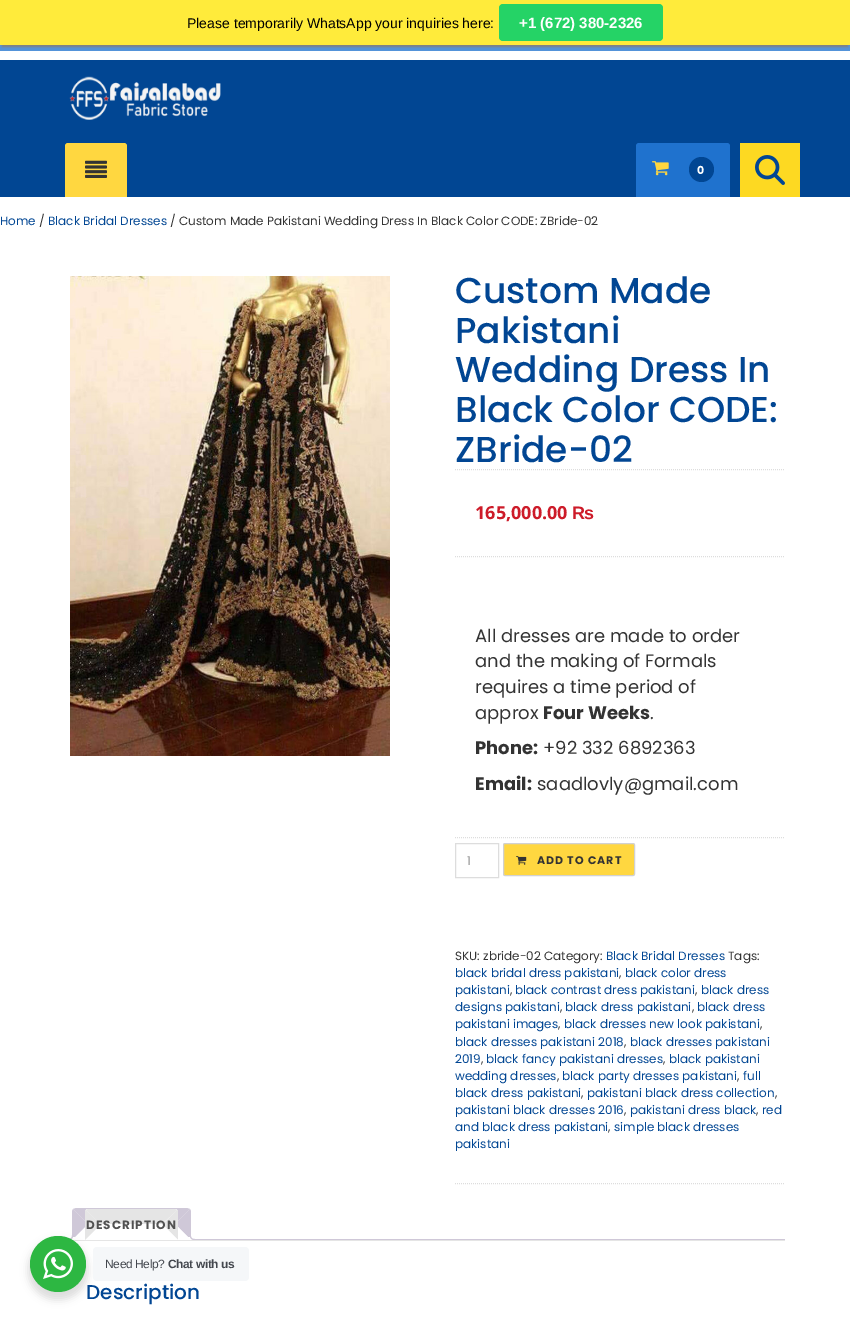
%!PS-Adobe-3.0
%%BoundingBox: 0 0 850 1322
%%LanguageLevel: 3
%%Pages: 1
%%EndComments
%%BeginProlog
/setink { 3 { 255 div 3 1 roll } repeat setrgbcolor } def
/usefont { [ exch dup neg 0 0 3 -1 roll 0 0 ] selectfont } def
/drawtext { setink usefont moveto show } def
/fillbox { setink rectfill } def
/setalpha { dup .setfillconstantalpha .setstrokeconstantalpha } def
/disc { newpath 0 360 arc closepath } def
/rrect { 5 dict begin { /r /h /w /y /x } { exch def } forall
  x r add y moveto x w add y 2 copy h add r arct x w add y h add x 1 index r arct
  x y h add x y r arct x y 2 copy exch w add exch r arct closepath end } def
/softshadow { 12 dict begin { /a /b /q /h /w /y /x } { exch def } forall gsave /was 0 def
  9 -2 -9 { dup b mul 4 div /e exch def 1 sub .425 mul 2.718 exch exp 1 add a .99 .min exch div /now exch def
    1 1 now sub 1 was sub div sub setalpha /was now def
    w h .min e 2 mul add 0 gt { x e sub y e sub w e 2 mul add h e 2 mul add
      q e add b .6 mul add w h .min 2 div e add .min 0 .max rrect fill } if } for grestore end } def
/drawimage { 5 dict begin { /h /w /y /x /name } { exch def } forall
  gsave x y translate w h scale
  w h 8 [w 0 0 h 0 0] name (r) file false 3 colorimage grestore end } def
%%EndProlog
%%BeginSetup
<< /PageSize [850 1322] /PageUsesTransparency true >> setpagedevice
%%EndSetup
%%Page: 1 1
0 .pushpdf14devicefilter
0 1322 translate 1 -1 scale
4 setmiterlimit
0 0 850 1322 255 255 255 fillbox
0 45 850 6 84 147 217 fillbox
128 128 128 setink
2 6 846 41 0 1 1 softshadow
0 0 850 45 255 235 59 fillbox
(Please temporarily WhatsApp your inquiries here:) 187 28 /LiberationSans-Regular 14 0 0 0 drawtext
37 211 102 setink
499 4 164 37 4 rrect fill
(+1 \(672\) 380-2326) 519 28 /LiberationSans-Bold 15 255 255 255 drawtext
0 60 850 137 1 70 147 fillbox
(assets/img1.rgb) 69 76 152 44 drawimage
255 215 64 setink
68 143 moveto 124 143 lineto 125.5 143 127 144.5 127 146 curveto 127 197 lineto 65 197 lineto 65 146 lineto 65 144.5 66.5 143 68 143 curveto closepath fill
(assets/img2.rgb) 85 160 22 18 drawimage
31 114 206 setink
639 143 moveto 727 143 lineto 728.5 143 730 144.5 730 146 curveto 730 197 lineto 636 197 lineto 636 146 lineto 636 144.5 637.5 143 639 143 curveto closepath fill
(assets/img3.rgb) 652 161 17 15 drawimage
1 70 147 setink
701.5 169.5 12.5 disc fill
/Poppins-Bold 11 usefont
255 255 255 setink
697 174 moveto 1 0 (0) ashow
740 143 60 54 253 217 34 fillbox
(assets/img4.rgb) 755 155 30 30 drawimage
(Home) 0 225 /Poppins-Regular 12 1 70 147 drawtext
(/) 39 225 /Poppins-Regular 12 51 51 51 drawtext
(Black Bridal Dresses) 48 225 /Poppins-Regular 12 1 70 147 drawtext
(/ Custom Made Pakistani Wedding Dress In Black Color CODE: ZBride-02) 170 225 /Poppins-Regular 12 51 51 51 drawtext
(assets/img5.rgb) 70 276 320 480 drawimage
221 221 221 setink
[1 1] 0 setdash
455 469.5 moveto 785 469.5 lineto stroke
(Custom Made) 455 303 /Poppins-Medium 36 1 70 147 drawtext
(Pakistani) 455 343 /Poppins-Medium 36 1 70 147 drawtext
(Wedding Dress In) 455 382 /Poppins-Medium 36 1 70 147 drawtext
(Black Color CODE:) 455 422 /Poppins-Medium 36 1 70 147 drawtext
(ZBride-02) 455 462 /Poppins-Medium 36 1 70 147 drawtext
221 221 221 setink
455 556.5 moveto 785 556.5 lineto stroke
(165,000.00) 475 519 /OpenSans-Bold 18 205 27 41 drawtext
(₨) 572 519 /LiberationSans-Bold 18 205 27 41 drawtext
221 221 221 setink
455 837.5 moveto 785 837.5 lineto stroke
(All dresses are made to order) 475 642 /Poppins-Regular 18 51 51 51 drawtext
(and the making of Formals) 475 667 /Poppins-Regular 18 51 51 51 drawtext
(requires a time period of) 475 693 /Poppins-Regular 18 51 51 51 drawtext
(approx) 475 719 /Poppins-Regular 18 51 51 51 drawtext
(Four Weeks) 543 719 /Poppins-Bold 18 51 51 51 drawtext
(.) 650 719 /Poppins-Regular 18 51 51 51 drawtext
(Phone:) 475 754 /Poppins-Bold 18 51 51 51 drawtext
(+92 332 6892363) 543 754 /Poppins-Regular 18 51 51 51 drawtext
(Email:) 475 790 /Poppins-Bold 18 51 51 51 drawtext
(saadlovly@gmail.com) 537 790 /Poppins-Regular 18 51 51 51 drawtext
221 221 221 setink
[] 0 setdash
455.5 843.5 43 34 rectstroke
(1) 467 865 /Poppins-Regular 12 153 153 153 drawtext
255 215 64 setink
503.5 843.5 131 32 1.5 rrect gsave fill grestore
209 209 209 setink
stroke
(assets/img6.rgb) 516 856 11 9 drawimage
/Poppins-Bold 11 usefont
51 51 51 setink
537 864 moveto 1 0 (ADD TO CART) ashow
221 221 221 setink
[1 1] 0 setdash
455 1183.5 moveto 785 1183.5 lineto stroke
(SKU: zbride-02 Category:) 455 960 /Poppins-Regular 12 51 51 51 drawtext
(Black Bridal Dresses) 606 960 /Poppins-Regular 12 1 70 147 drawtext
(Tags:) 728 960 /Poppins-Regular 12 51 51 51 drawtext
(black bridal dress pakistani) 455 977 /Poppins-Regular 12 1 70 147 drawtext
(,) 619 977 /Poppins-Regular 12 51 51 51 drawtext
(black color dress) 625 977 /Poppins-Regular 12 1 70 147 drawtext
(pakistani) 455 994 /Poppins-Regular 12 1 70 147 drawtext
(,) 510 994 /Poppins-Regular 12 51 51 51 drawtext
(black contrast dress pakistani) 515 994 /Poppins-Regular 12 1 70 147 drawtext
(,) 695 994 /Poppins-Regular 12 51 51 51 drawtext
(black dress) 701 994 /Poppins-Regular 12 1 70 147 drawtext
(designs pakistani) 455 1011 /Poppins-Regular 12 1 70 147 drawtext
(,) 560 1011 /Poppins-Regular 12 51 51 51 drawtext
(black dress pakistani) 565 1011 /Poppins-Regular 12 1 70 147 drawtext
(,) 692 1011 /Poppins-Regular 12 51 51 51 drawtext
(black dress) 697 1011 /Poppins-Regular 12 1 70 147 drawtext
(pakistani images) 455 1028 /Poppins-Regular 12 1 70 147 drawtext
(,) 558 1028 /Poppins-Regular 12 51 51 51 drawtext
(black dresses new look pakistani) 564 1028 /Poppins-Regular 12 1 70 147 drawtext
(,) 760 1028 /Poppins-Regular 12 51 51 51 drawtext
(black dresses pakistani 2018) 455 1046 /Poppins-Regular 12 1 70 147 drawtext
(,) 624 1046 /Poppins-Regular 12 51 51 51 drawtext
(black dresses pakistani) 630 1046 /Poppins-Regular 12 1 70 147 drawtext
(2019) 455 1063 /Poppins-Regular 12 1 70 147 drawtext
(,) 481 1063 /Poppins-Regular 12 51 51 51 drawtext
(black fancy pakistani dresses) 486 1063 /Poppins-Regular 12 1 70 147 drawtext
(,) 663 1063 /Poppins-Regular 12 51 51 51 drawtext
(black pakistani) 669 1063 /Poppins-Regular 12 1 70 147 drawtext
(wedding dresses) 455 1080 /Poppins-Regular 12 1 70 147 drawtext
(,) 557 1080 /Poppins-Regular 12 51 51 51 drawtext
(black party dresses pakistani) 562 1080 /Poppins-Regular 12 1 70 147 drawtext
(,) 737 1080 /Poppins-Regular 12 51 51 51 drawtext
(full) 743 1080 /Poppins-Regular 12 1 70 147 drawtext
(black dress pakistani) 455 1097 /Poppins-Regular 12 1 70 147 drawtext
(,) 581 1097 /Poppins-Regular 12 51 51 51 drawtext
(pakistani black dress collection) 587 1097 /Poppins-Regular 12 1 70 147 drawtext
(,) 775 1097 /Poppins-Regular 12 51 51 51 drawtext
(pakistani black dresses 2016) 455 1114 /Poppins-Regular 12 1 70 147 drawtext
(,) 624 1114 /Poppins-Regular 12 51 51 51 drawtext
(pakistani dress black) 630 1114 /Poppins-Regular 12 1 70 147 drawtext
(,) 756 1114 /Poppins-Regular 12 51 51 51 drawtext
(red) 762 1114 /Poppins-Regular 12 1 70 147 drawtext
(and black dress pakistani) 455 1131 /Poppins-Regular 12 1 70 147 drawtext
(,) 608 1131 /Poppins-Regular 12 51 51 51 drawtext
(simple black dresses) 614 1131 /Poppins-Regular 12 1 70 147 drawtext
(pakistani) 455 1148 /Poppins-Regular 12 1 70 147 drawtext
65 1240 720 1 229 229 229 fillbox
65 1239 720 1 207 200 216 fillbox
255 255 255 setink
76 1208 moveto 187 1208 lineto 189 1208 191 1210 191 1212 curveto 191 1240 lineto 72 1240 lineto 72 1212 lineto 72 1210 74 1208 76 1208 curveto closepath fill
207 200 216 setink
76 1208 moveto 187 1208 lineto 190 1209 lineto 175 1224 lineto 88 1224 lineto 73 1209 lineto closepath fill
190 1209 moveto 175 1224 lineto 191 1240 lineto 191 1212 lineto 191 1211 190.5 1210 190 1209 curveto closepath fill
255 255 255 setink
191 1240 moveto 175 1224 lineto 88 1224 lineto 72 1240 lineto closepath fill
207 200 216 setink
72 1240 moveto 72 1212 lineto 72 1211 72.5 1210 73 1209 curveto 88 1224 lineto closepath fill
255 255 255 setink
88 1209 moveto 175 1209 lineto 176.5 1209 178 1210.5 178 1212 curveto 178 1240 lineto 85 1240 lineto 85 1212 lineto 85 1210.5 86.5 1209 88 1209 curveto closepath fill
229 229 229 setink
88 1209 moveto 175 1209 lineto 177 1210 lineto 162 1224 lineto 100 1224 lineto 86 1210 lineto closepath fill
177 1210 moveto 162.5 1224.5 lineto 178 1240 lineto 178 1212 lineto 178 1211 178 1210 177 1210 curveto closepath fill
255 255 255 setink
178 1240 moveto 162 1224 lineto 100 1224 lineto 85 1240 lineto closepath fill
229 229 229 setink
85 1240 moveto 85 1212 lineto 85 1211 85 1210 86 1210 curveto 100.5 1224.5 lineto closepath fill
/Poppins-Bold 12 usefont
81 81 81 setink
86 1229 moveto 1 0 (DESCRIPTION) ashow
255 255 255 setink
70 1240 moveto 74.5 1240 lineto 75 1239 75 1238 75 1237 curveto 73 1237 lineto 72.5 1238.5 71.5 1239.5 70 1240 curveto closepath fill
207 200 216 setink
68 1235 moveto 73 1235 lineto 73 1238.5 71.5 1240 68 1240 curveto closepath 68 1235 moveto 72 1235 lineto 72 1238 71 1239 68 1239 curveto closepath eofill
255 255 255 setink
188 1237 moveto 188 1238 188 1239 188.5 1240 curveto 193 1240 lineto 191.5 1239.5 190.5 1238.5 190 1237 curveto closepath fill
207 200 216 setink
190 1235 moveto 195 1235 lineto 195 1240 lineto 192.5 1240 190 1239 190 1236 curveto closepath 191 1235 moveto 195 1235 lineto 195 1239 lineto 193 1239 191 1238.5 191 1236 curveto closepath eofill
(Description) 86 1299 /Poppins-Medium 20 1 70 147 drawtext
0 0 0 setink
28 1240 60 60 30 4 0.14 softshadow
45 183 66 setink
58 1264 28 disc fill
(assets/img7.rgb) 43 1249 30 30 drawimage
245 247 249 setink
93 1247 156 34 4 rrect fill
/LiberationSans-Regular 12 usefont
67 71 78 setink
105 1268 moveto -0.4 0 (Need Help?) ashow
/LiberationSans-Bold 12 usefont
168 1268 moveto -0.4 0 (Chat with us) ashow
.poppdf14devicefilter showpage
%%EOF
